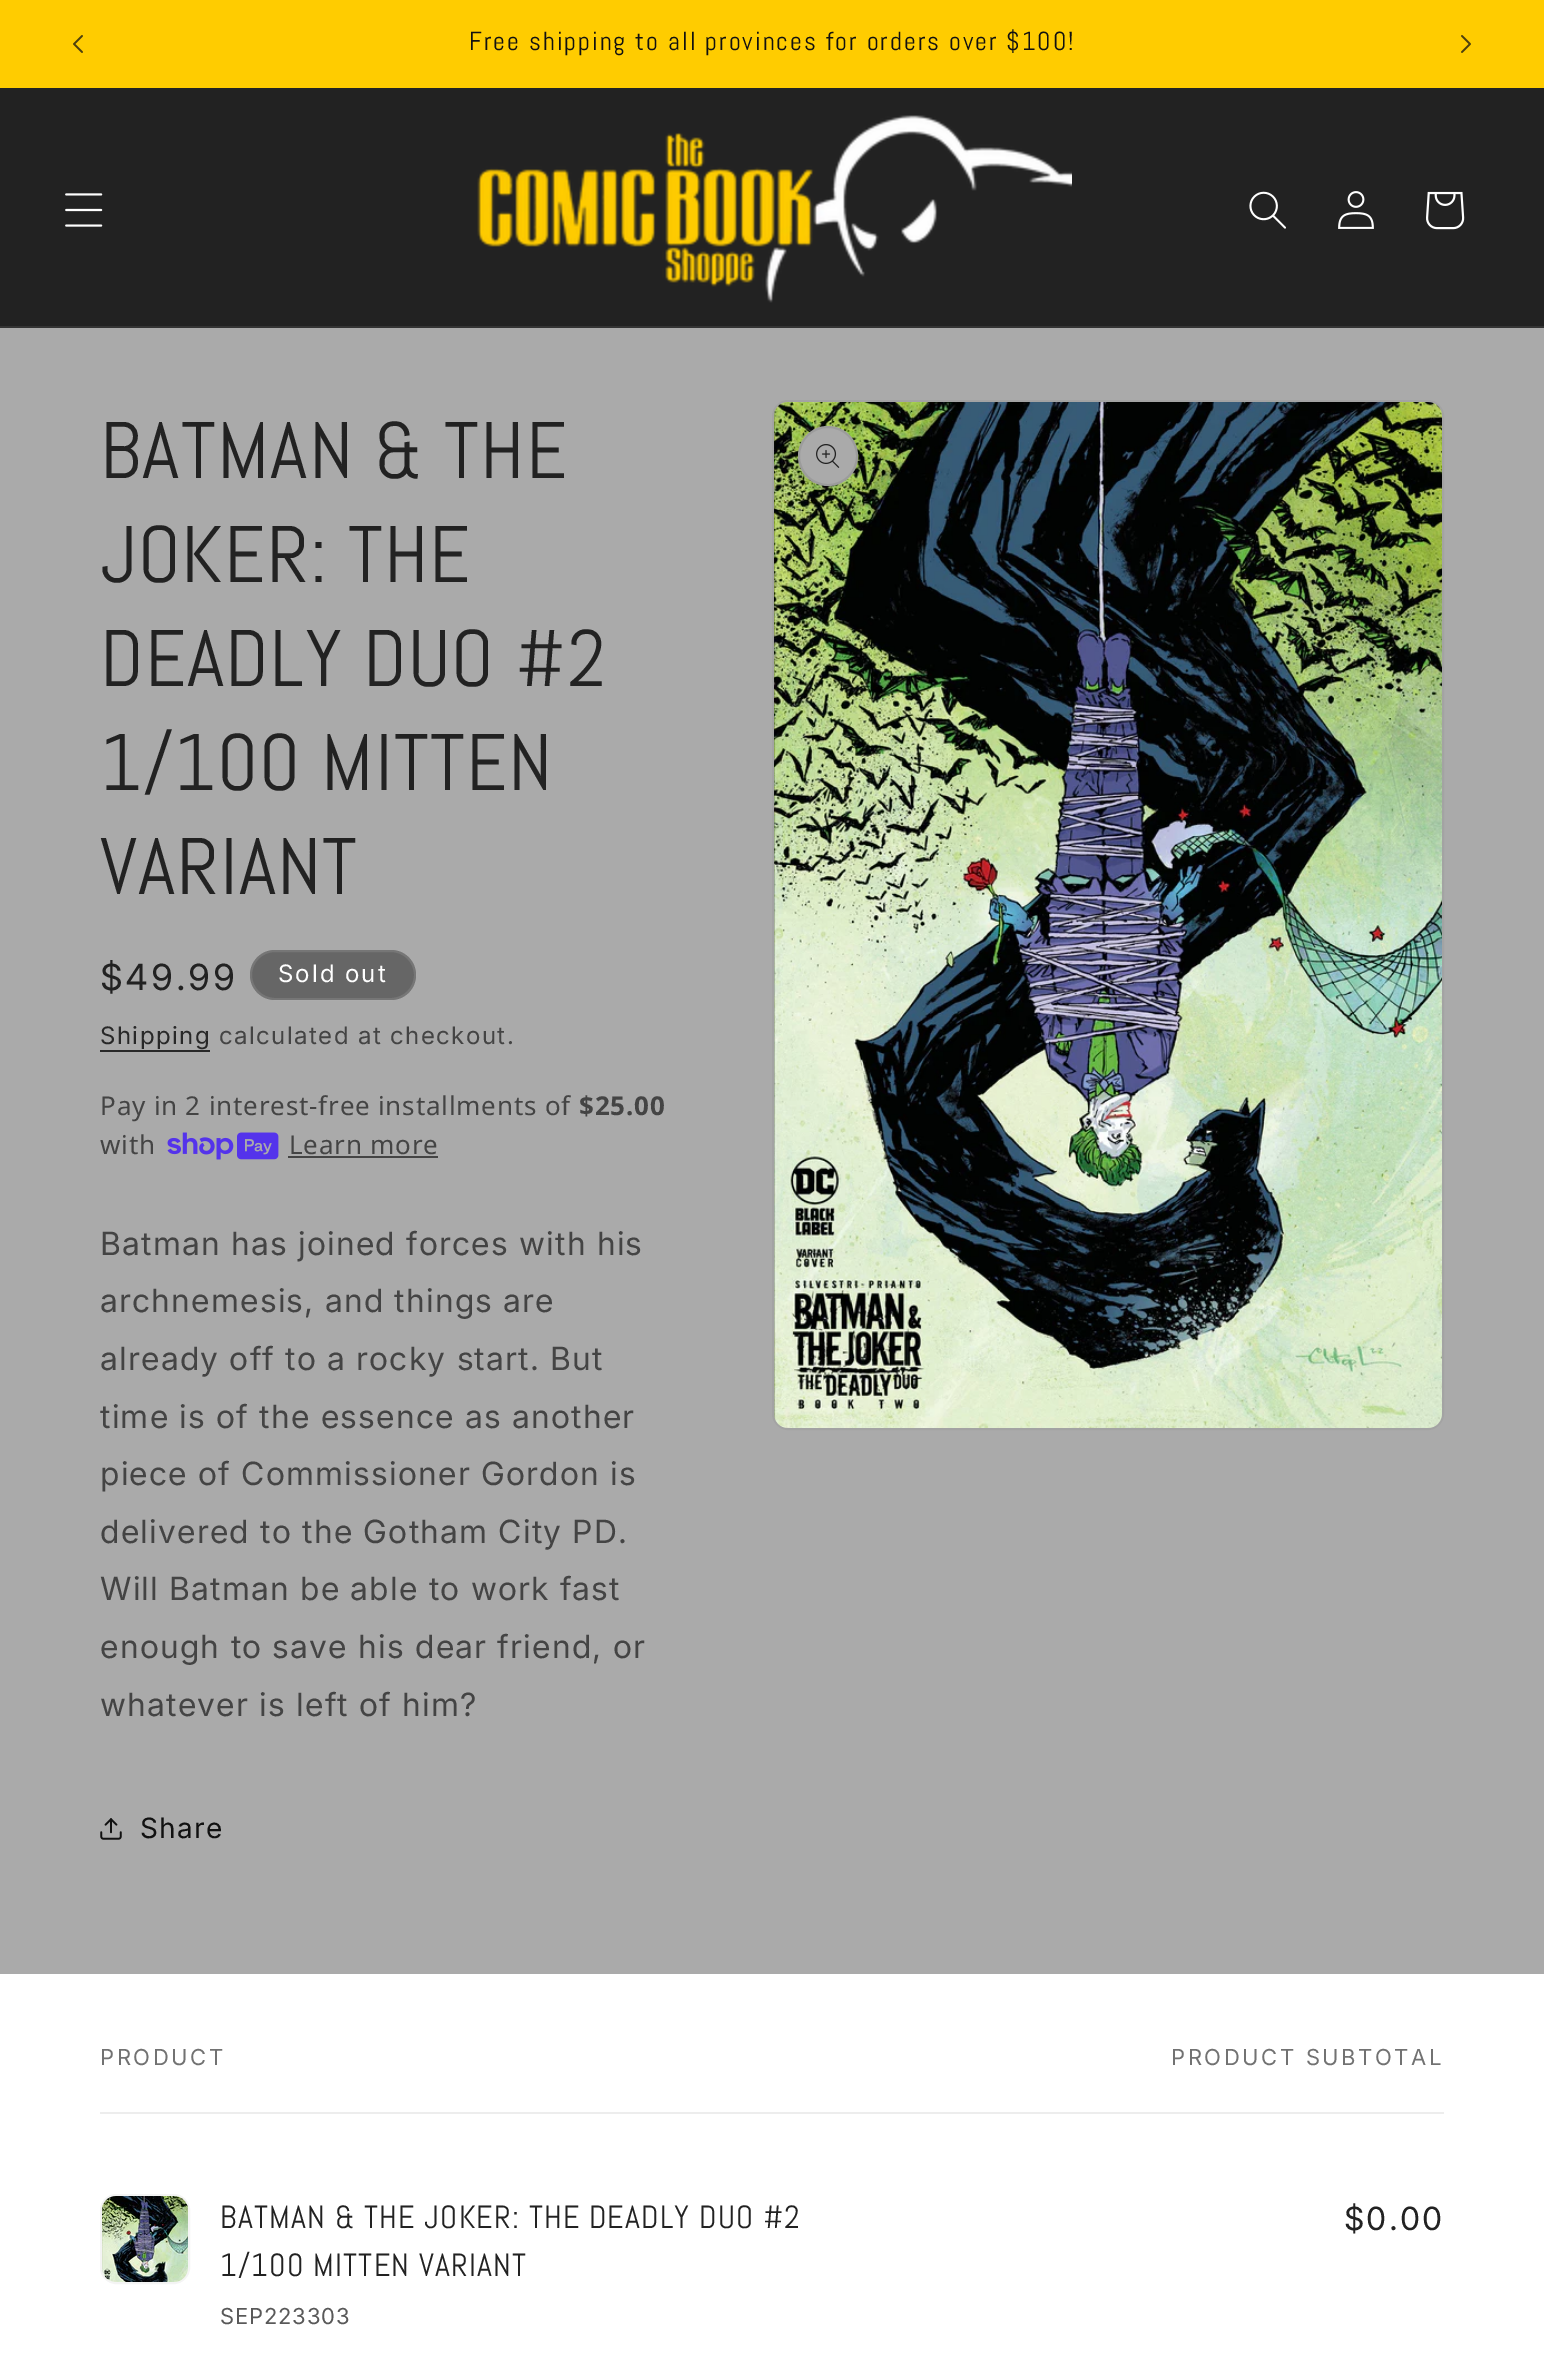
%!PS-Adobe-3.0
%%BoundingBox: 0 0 1544 2362
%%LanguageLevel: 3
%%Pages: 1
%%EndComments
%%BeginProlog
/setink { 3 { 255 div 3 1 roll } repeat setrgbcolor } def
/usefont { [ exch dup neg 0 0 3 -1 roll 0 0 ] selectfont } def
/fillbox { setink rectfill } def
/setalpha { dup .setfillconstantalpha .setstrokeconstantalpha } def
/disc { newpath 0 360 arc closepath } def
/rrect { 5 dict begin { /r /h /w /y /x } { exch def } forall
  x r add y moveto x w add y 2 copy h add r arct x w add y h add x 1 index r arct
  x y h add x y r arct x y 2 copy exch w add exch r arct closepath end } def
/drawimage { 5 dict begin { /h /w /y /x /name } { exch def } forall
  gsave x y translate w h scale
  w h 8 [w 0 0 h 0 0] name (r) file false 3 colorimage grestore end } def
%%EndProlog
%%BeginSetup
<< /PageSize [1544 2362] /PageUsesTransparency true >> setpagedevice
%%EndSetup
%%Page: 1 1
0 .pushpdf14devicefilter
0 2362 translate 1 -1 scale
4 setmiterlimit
0 0 1544 2362 170 170 170 fillbox
0 0 1544 88 255 204 0 fillbox
(assets/img1.rgb) 73 35 10 18 drawimage
/Abel-Regular 26 usefont
17 17 17 setink
469 50 moveto 2 0 (Free shipping to all provinces for orders over $100!) ashow
(assets/img2.rgb) 1461 35 10 18 drawimage
0 88 1544 238 34 34 34 fillbox
0 326 1544 2 52 52 52 fillbox
(assets/img3.rgb) 65 193 38 34 drawimage
(assets/img4.rgb) 477 115 595 188 drawimage
(assets/img5.rgb) 1249 191 37 38 drawimage
(assets/img6.rgb) 1338 191 36 38 drawimage
(assets/img7.rgb) 1426 191 39 39 drawimage
/Abel-Regular 80 usefont
34 34 34 setink
100 478 moveto 1.2 0 (BATMAN & THE) ashow
100 582 moveto 1.2 0 (JOKER: THE) ashow
100 686 moveto 1.2 0 (DEADLY DUO #2) ashow
100 790 moveto 1.2 0 (1/100 MITTEN) ashow
100 894 moveto 1.2 0 (VARIANT) ashow
/Inter-Regular 36 usefont
100 990 moveto 2.6 0 ($49.99) ashow
102 102 102 setink
250 950 166 50 25 rrect fill
0.1 setalpha
255 255 255 setink
2 setlinewidth
251 951 164 48 24 rrect stroke
/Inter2-Regular 24 usefont
1 setalpha
278 982 moveto 2 0 (Sold out) ashow
40 40 40 setink
100 1044 moveto 1.4 0 (Shipping) ashow
100 1050 110 2 40 40 40 fillbox
68 68 68 setink
219 1044 moveto 1.4 0 (calculated at checkout.) ashow
/NotoSans-Regular 26 usefont
100 1115 moveto 0.8 0 (Pay in 2 interest-free installments of) ashow
/NotoSans-Bold 26 usefont
579 1115 moveto 0.8 0 ($25.00) ashow
/NotoSans-Regular 26 usefont
100 1154 moveto 0.8 0 (with) ashow
(assets/img8.rgb) 167 1132 112 28 drawimage
289 1154 moveto 0.8 0 (Learn more) ashow
288 1156 150 2 68 68 68 fillbox
/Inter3-Regular 32 usefont
100 1255 moveto 1.2 0 (Batman has joined forces with his) ashow
100 1312 moveto 1.2 0 (archnemesis, and things are) ashow
100 1370 moveto 1.2 0 (already off to a rocky start. But) ashow
100 1428 moveto 1.2 0 (time is of the essence as another) ashow
100 1485 moveto 1.2 0 (piece of Commissioner Gordon is) ashow
100 1543 moveto 1.2 0 (delivered to the Gotham City PD.) ashow
100 1600 moveto 1.2 0 (Will Batman be able to work fast) ashow
100 1658 moveto 1.2 0 (enough to save his dear friend, or) ashow
100 1716 moveto 1.2 0 (whatever is left of him?) ashow
(assets/img9.rgb) 100 1818 22 22 drawimage
/Inter2-Regular 28 usefont
17 17 17 setink
140 1838 moveto 1.2 0 (Share) ashow
163 163 163 setink
773 401 670 1028 15 rrect stroke
(assets/img10.rgb) 774 402 668 1026 drawimage
170 170 170 setink
828 456 30 disc fill
0.1 setalpha
34 34 34 setink
828 456 29 disc stroke
1 setalpha
(assets/img11.rgb) 816 444 24 24 drawimage
0 1974 1544 388 255 255 255 fillbox
100 2112 1344 2 237 237 237 fillbox
/Inter2-Regular 22 usefont
114 114 114 setink
100 2065 moveto 2.6 0 (PRODUCT) ashow
1171 2065 moveto 2.6 0 (PRODUCT SUBTOTAL) ashow
244 244 244 setink
101 2195 88 88 15 rrect stroke
(assets/img12.rgb) 102 2196 86 86 drawimage
/Abel-Regular 32 usefont
34 34 34 setink
220 2228 moveto 1.2 0 (BATMAN & THE JOKER: THE DEADLY DUO #2) ashow
220 2276 moveto 1.2 0 (1/100 MITTEN VARIANT) ashow
/Inter2-Regular 22 usefont
89 89 89 setink
220 2324 moveto 0.8 0 (SEP223303) ashow
/Inter3-Regular 32 usefont
34 34 34 setink
1344 2230 moveto 2 0 ($0.00) ashow
.poppdf14devicefilter showpage
%%EOF
